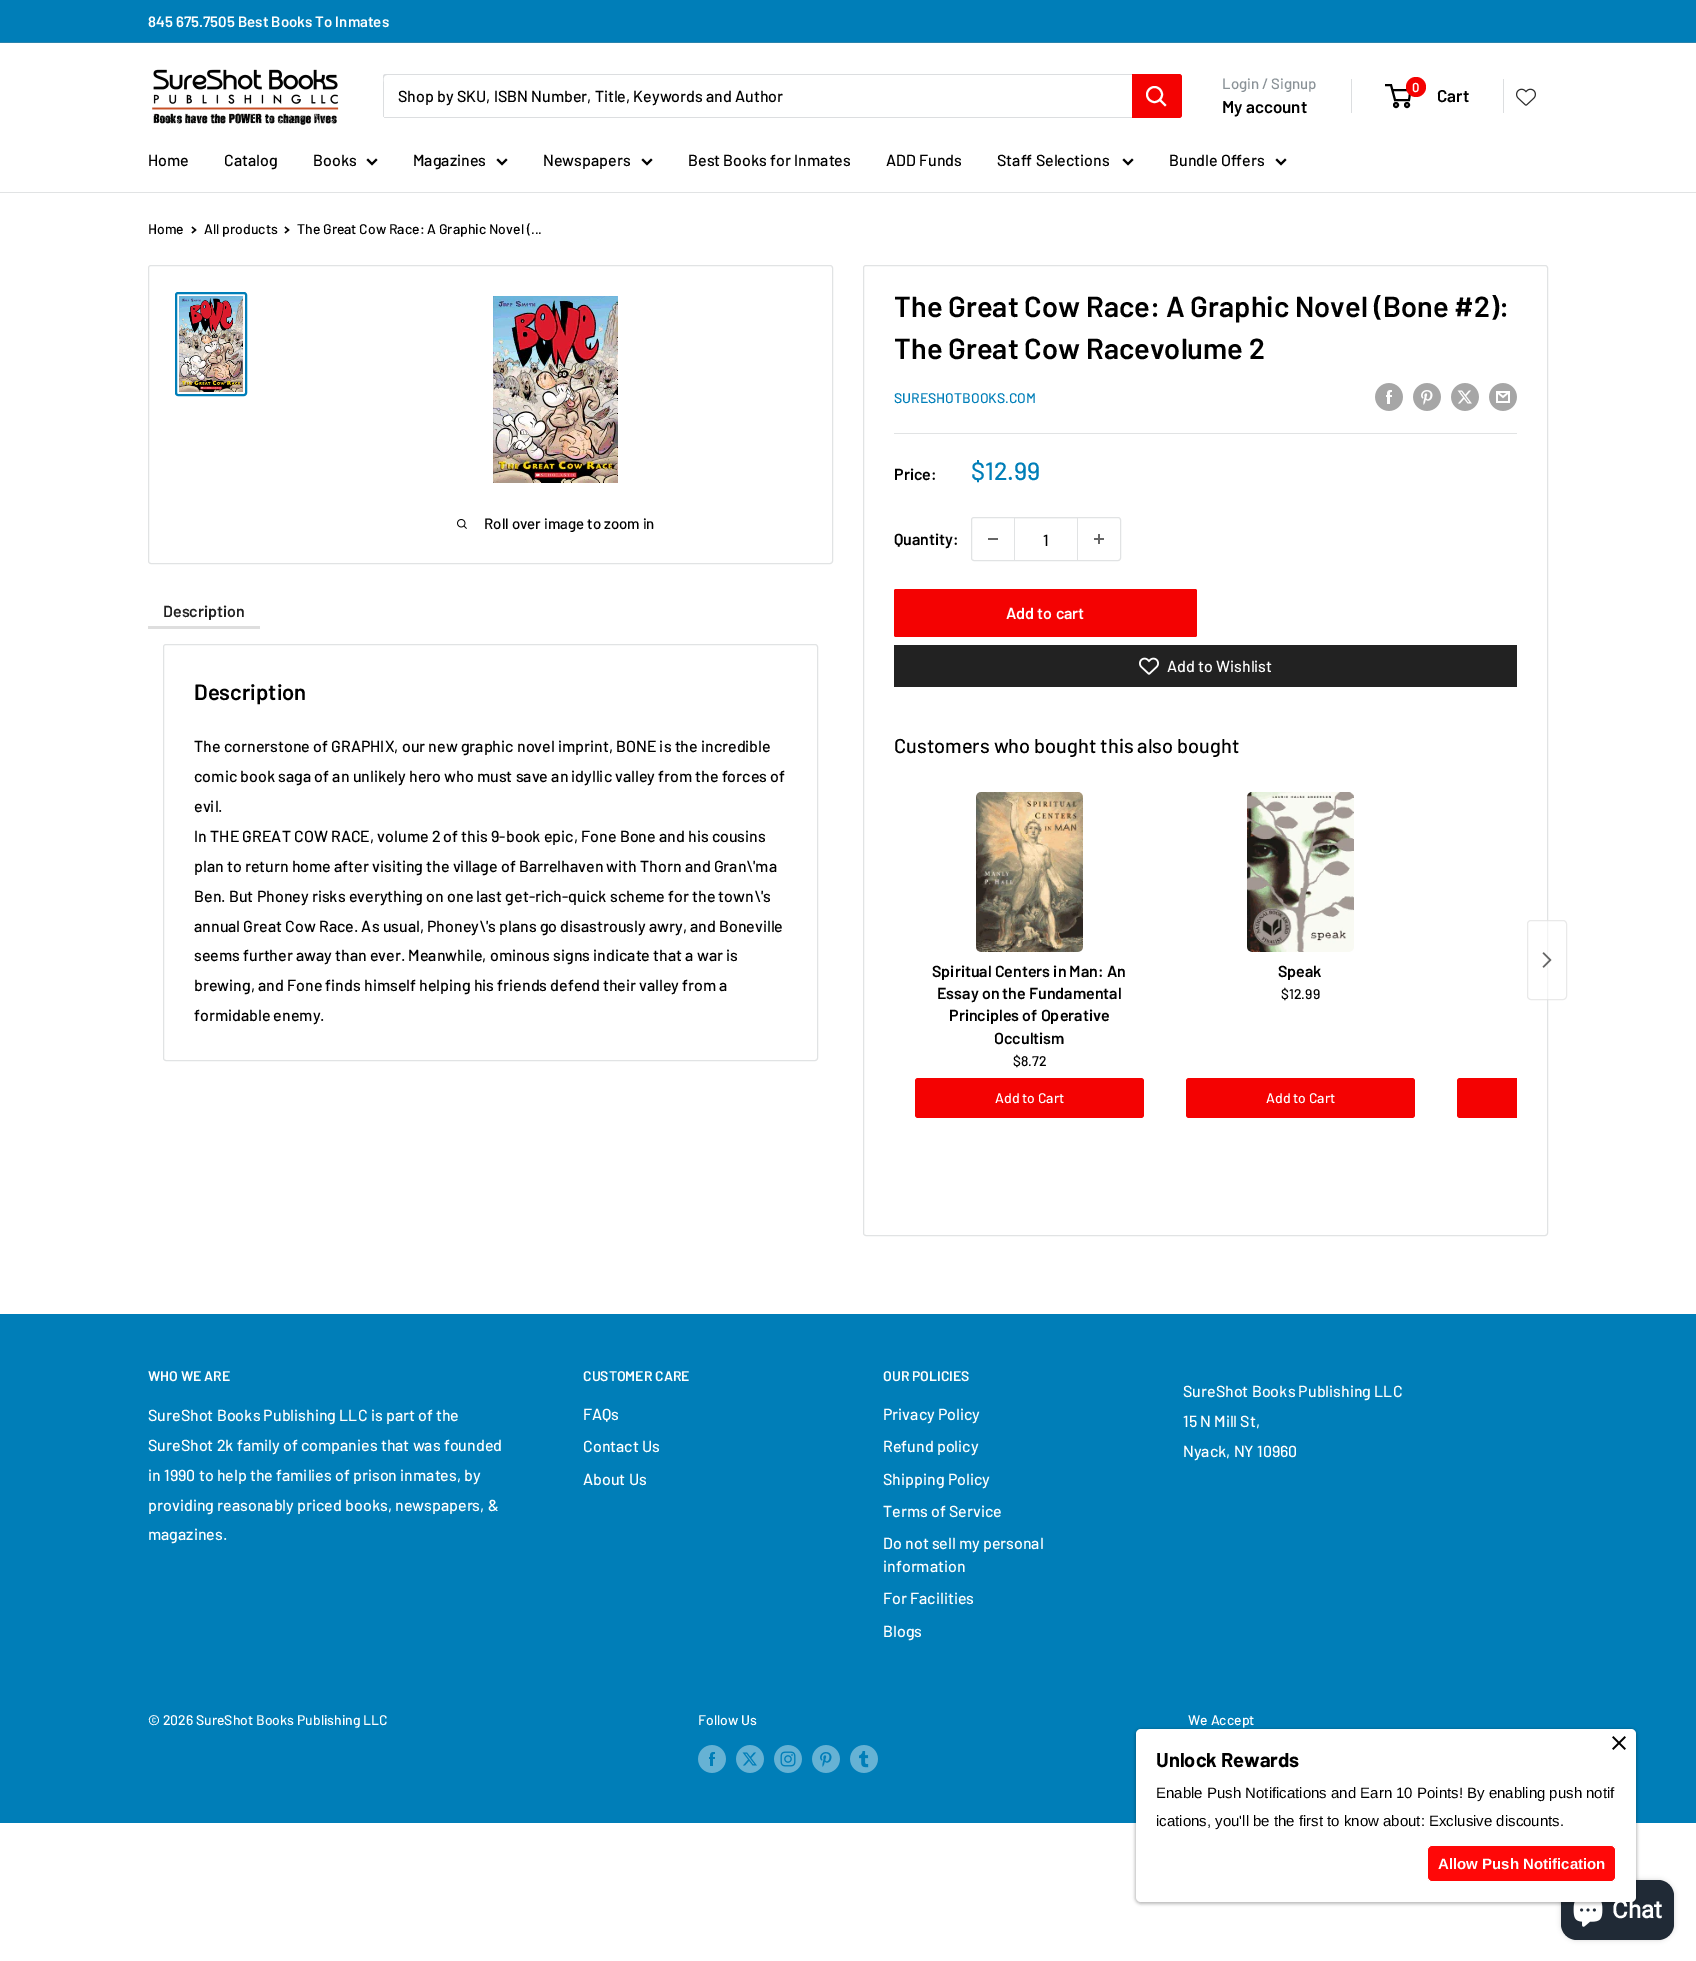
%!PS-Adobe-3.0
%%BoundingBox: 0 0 1696 1961
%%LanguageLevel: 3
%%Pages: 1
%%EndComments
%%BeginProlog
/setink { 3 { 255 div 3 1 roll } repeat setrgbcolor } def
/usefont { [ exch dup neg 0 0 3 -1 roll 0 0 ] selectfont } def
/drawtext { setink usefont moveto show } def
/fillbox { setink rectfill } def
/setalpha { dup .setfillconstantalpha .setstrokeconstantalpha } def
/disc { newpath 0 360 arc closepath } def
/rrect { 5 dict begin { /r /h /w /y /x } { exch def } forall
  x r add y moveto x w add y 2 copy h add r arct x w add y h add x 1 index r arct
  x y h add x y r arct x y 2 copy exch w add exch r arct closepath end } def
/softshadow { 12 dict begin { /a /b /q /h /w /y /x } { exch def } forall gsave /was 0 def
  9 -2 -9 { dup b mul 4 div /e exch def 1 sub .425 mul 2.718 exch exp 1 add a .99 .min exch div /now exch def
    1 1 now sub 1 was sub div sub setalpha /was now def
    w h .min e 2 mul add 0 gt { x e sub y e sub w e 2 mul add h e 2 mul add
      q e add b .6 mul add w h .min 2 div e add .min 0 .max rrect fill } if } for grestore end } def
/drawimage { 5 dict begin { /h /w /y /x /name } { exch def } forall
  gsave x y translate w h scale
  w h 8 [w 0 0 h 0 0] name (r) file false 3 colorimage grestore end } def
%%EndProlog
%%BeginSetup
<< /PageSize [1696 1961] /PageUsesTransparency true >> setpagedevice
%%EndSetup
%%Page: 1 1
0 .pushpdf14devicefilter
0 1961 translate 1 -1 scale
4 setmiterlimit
0 0 1696 1961 255 255 255 fillbox
0 0 1696 42 0 126 184 fillbox
0 42 1696 1 41 132 174 fillbox
(845 675.7505 Best Books To Inmates) 148 27 /Barlow-SemiBold 15 255 255 255 drawtext
(assets/img1.rgb) 152 69 187 56 drawimage
220 222 224 setink
384 117 moveto 384 118 385 118 386 118 curveto 1179 118 lineto 1181 118 1182 117 1182 115 curveto 1182 77 lineto 1182 76 1182 75 1181 75 curveto 1181 108 lineto 1181 110 1183 117 1178 117 curveto closepath fill
387 75 moveto 1181 75 lineto 1181 74 1180 74 1179 74 curveto 386 74 lineto 384 74 383 75 383 77 curveto 383 115 lineto 383 116 383 117 384 117 curveto 384 84 lineto 384 82 382 75 387 75 curveto closepath fill
(Shop by SKU, ISBN Number, Title, Keywords and Author) 398 102 /Barlow-Medium 16 0 0 0 drawtext
244 2 2 setink
1132 74 moveto 1179 74 lineto 1180.5 74 1182 75.5 1182 77 curveto 1182 115 lineto 1182 116.5 1180.5 118 1179 118 curveto 1132 118 lineto closepath fill
255 255 255 setink
2 setlinewidth
2 setlinecap
1165 105 moveto 1160 100 lineto stroke
0 setlinecap
1154.5 94.5 7.5 disc stroke
(Login / Signup) 1222 89 /Barlow-Medium 15 138 146 151 drawtext
1351 79 1 34 220 222 224 fillbox
(My account) 1222 113 /Barlow-SemiBold 17 0 0 0 drawtext
1396 105 2 disc stroke
1407 105 2 disc stroke
1392.5 90 moveto 1410.5 90 lineto 1409 100 lineto 1395 100 lineto 1391 85 lineto 1385 85 lineto stroke
244 2 2 setink
1416 87 10 disc fill
(0) 1412 92 /Barlow-SemiBold 13 255 255 255 drawtext
(Cart) 1437 102 /Barlow-SemiBold 17 0 0 0 drawtext
1503 79 1 34 220 222 224 fillbox
(assets/img2.rgb) 1516 88 20 18 drawimage
0 192 1696 1 225 227 228 fillbox
(Home) 148 166 /Barlow-Medium 16 0 0 0 drawtext
(Catalog) 224 166 /Barlow-Medium 16 0 0 0 drawtext
(Books) 313 166 /Barlow-Medium 16 0 0 0 drawtext
2 setlinecap
376 160 moveto 372 164 lineto 368 160 lineto stroke
(Magazines) 413 166 /Barlow-Medium 16 0 0 0 drawtext
506 160 moveto 502 164 lineto 498 160 lineto stroke
(Newspapers) 543 166 /Barlow-Medium 16 0 0 0 drawtext
651 160 moveto 647 164 lineto 643 160 lineto stroke
(Best Books for Inmates) 688 166 /Barlow-Medium 16 0 0 0 drawtext
(ADD Funds) 886 166 /Barlow-Medium 16 0 0 0 drawtext
(Staff Selections) 997 166 /Barlow-Medium 16 0 0 0 drawtext
1132 160 moveto 1128 164 lineto 1124 160 lineto stroke
(Bundle Offers) 1169 166 /Barlow-Medium 16 0 0 0 drawtext
1285 160 moveto 1281 164 lineto 1277 160 lineto stroke
(Home) 148 234 /Barlow-Medium 14 0 0 0 drawtext
1.3 setlinewidth
192.5 227.5 moveto 195.5 230 lineto 192.5 232.5 lineto stroke
(All products) 204 234 /Barlow-Medium 14 0 0 0 drawtext
285.5 227.5 moveto 288.5 230 lineto 285.5 232.5 lineto stroke
(The Great Cow Race: A Graphic Novel \(...) 297 234 /Barlow-Medium 14 0 0 0 drawtext
225 227 228 setink
1 setlinewidth
0 setlinecap
148.5 265.5 684 298 2.5 rrect stroke
0 126 184 setink
2 setlinewidth
176 293 70 102 2 rrect stroke
(assets/img3.rgb) 179 296 64 96 drawimage
(assets/img4.rgb) 493 296 125 187 drawimage
(assets/img5.rgb) 457 519 10 10 drawimage
(Roll over image to zoom in) 484 529 /Barlow-Medium 15 0 0 0 drawtext
225 227 228 setink
1 setlinewidth
863.5 265.5 684 970 2.5 rrect stroke
(The Great Cow Race: A Graphic Novel \(Bone #2\):) 894 317 /Barlow-SemiBold 29 0 0 0 drawtext
(The Great Cow Racevolume 2) 894 359 /Barlow-SemiBold 29 0 0 0 drawtext
(SURESHOTBOOKS.COM) 894 403 /Barlow-Medium 14 0 126 184 drawtext
(assets/img6.rgb) 1375 383 28 28 drawimage
(assets/img7.rgb) 1413 383 28 28 drawimage
(assets/img8.rgb) 1451 383 28 28 drawimage
(assets/img9.rgb) 1489 383 28 28 drawimage
894 433 623 1 225 227 228 fillbox
(Price:) 894 480 /Barlow-SemiBold 16 0 0 0 drawtext
($12.99) 971 480 /Barlow-Medium 25 0 126 184 drawtext
(Quantity:) 894 545 /Barlow-SemiBold 16 0 0 0 drawtext
225 227 228 setink
971.5 517.5 149 43 2.5 rrect stroke
988 538 10 2 102 102 102 fillbox
1015 518 62 1 243 244 244 fillbox
1077 518 1 42 225 227 228 fillbox
1014 518 1 42 225 227 228 fillbox
(1) 1043 546 /Barlow-Medium 16 0 0 0 drawtext
(assets/img10.rgb) 1094 534 10 10 drawimage
244 2 2 setink
894 589 303 48 2 rrect fill
(Add to cart) 1006 619 /Barlow-SemiBold 16 255 255 255 drawtext
894 645 623 42 34 34 34 fillbox
(assets/img11.rgb) 1139 657 20 18 drawimage
(Add to Wishlist) 1167 672 /Barlow-Medium 16 255 255 255 drawtext
(Customers who bought this also bought) 894 753 /Barlow-Medium 20 0 0 0 drawtext
(assets/img12.rgb) 976 792 107 160 drawimage
(Spiritual Centers in Man: An) 932 977 /Barlow-SemiBold 16 0 0 0 drawtext
(Essay on the Fundamental) 937 999 /Barlow-SemiBold 16 0 0 0 drawtext
(Principles of Operative) 949 1021 /Barlow-SemiBold 16 0 0 0 drawtext
(Occultism) 994 1044 /Barlow-SemiBold 16 0 0 0 drawtext
($8.72) 1013 1066 /Barlow-Medium 14 0 0 0 drawtext
244 2 2 setink
915 1078 229 40 3 rrect fill
(Add to Cart) 995 1103 /Barlow-Medium 14 255 255 255 drawtext
(assets/img13.rgb) 1247 792 107 160 drawimage
(Speak) 1278 977 /Barlow-SemiBold 16 0 0 0 drawtext
($12.99) 1281 999 /Barlow-Medium 14 0 0 0 drawtext
244 2 2 setink
1186 1078 229 40 3 rrect fill
(Add to Cart) 1266 1103 /Barlow-Medium 14 255 255 255 drawtext
244 2 2 setink
1460 1078 moveto 1517 1078 lineto 1517 1118 lineto 1460 1118 lineto 1458.5 1118 1457 1116.5 1457 1115 curveto 1457 1081 lineto 1457 1079.5 1458.5 1078 1460 1078 curveto closepath fill
0.6 setalpha
255 255 255 setink
1527 920 40 80 4 rrect fill
218 218 218 setink
1527.5 920.5 39 79 3.5 rrect stroke
1 setalpha
(assets/img14.rgb) 1542 952 10 16 drawimage
148 626 112 3 222 222 222 fillbox
(Description) 163 617 /Barlow-SemiBold 16 34 34 34 drawtext
225 227 228 setink
163.5 644.5 654 416 2.5 rrect stroke
(Description) 194 700 /Barlow-SemiBold 22 0 0 0 drawtext
(The cornerstone of GRAPHIX, our new graphic novel imprint, BONE is the incredible) 194 752 /Barlow-Medium 16 0 0 0 drawtext
(comic book saga of an unlikely hero who must save an idyllic valley from the forces of) 194 782 /Barlow-Medium 16 0 0 0 drawtext
(evil.) 194 812 /Barlow-Medium 16 0 0 0 drawtext
(In THE GREAT COW RACE, volume 2 of this 9-book epic, Fone Bone and his cousins) 194 842 /Barlow-Medium 16 0 0 0 drawtext
(plan to return home after visiting the village of Barrelhaven with Thorn and Gran\\'ma) 194 872 /Barlow-Medium 16 0 0 0 drawtext
(Ben. But Phoney risks everything on one last get-rich-quick scheme for the town\\'s) 194 902 /Barlow-Medium 16 0 0 0 drawtext
(annual Great Cow Race. As usual, Phoney\\'s plans go disastrously awry, and Boneville) 194 932 /Barlow-Medium 16 0 0 0 drawtext
(seems further away than ever. Meanwhile, ominous signs indicate that a war is) 194 961 /Barlow-Medium 16 0 0 0 drawtext
(brewing, and Fone finds himself helping his friends defend their valley from a) 194 991 /Barlow-Medium 16 0 0 0 drawtext
(formidable enemy.) 194 1021 /Barlow-Medium 16 0 0 0 drawtext
0 1314 1696 509 0 126 184 fillbox
(WHO WE ARE) 148 1381 /Barlow-SemiBold 14 255 255 255 drawtext
(SureShot Books Publishing LLC is part of the) 148 1421 /Barlow-Medium 16 255 255 255 drawtext
(SureShot 2k family of companies that was founded) 148 1451 /Barlow-Medium 16 255 255 255 drawtext
(in 1990 to help the families of prison inmates, by) 148 1481 /Barlow-Medium 16 255 255 255 drawtext
(providing reasonably priced books, newspapers, &) 148 1511 /Barlow-Medium 16 255 255 255 drawtext
(magazines.) 148 1540 /Barlow-Medium 16 255 255 255 drawtext
(CUSTOMER CARE) 583 1381 /Barlow-SemiBold 14 255 255 255 drawtext
(FAQs) 583 1420 /Barlow-Medium 16 255 255 255 drawtext
(Contact Us) 583 1452 /Barlow-Medium 16 255 255 255 drawtext
(About Us) 583 1485 /Barlow-Medium 16 255 255 255 drawtext
(OUR POLICIES) 883 1381 /Barlow-SemiBold 14 255 255 255 drawtext
(Privacy Policy) 883 1420 /Barlow-Medium 16 255 255 255 drawtext
(Refund policy) 883 1452 /Barlow-Medium 16 255 255 255 drawtext
(Shipping Policy) 883 1485 /Barlow-Medium 16 255 255 255 drawtext
(Terms of Service) 883 1517 /Barlow-Medium 16 255 255 255 drawtext
(Do not sell my personal) 883 1549 /Barlow-Medium 16 255 255 255 drawtext
(information) 883 1572 /Barlow-Medium 16 255 255 255 drawtext
(For Facilities) 883 1604 /Barlow-Medium 16 255 255 255 drawtext
(Blogs) 883 1637 /Barlow-Medium 16 255 255 255 drawtext
(SureShot Books Publishing LLC) 1183 1397 /Barlow-Medium 16 255 255 255 drawtext
(15 N Mill St,) 1183 1427 /Barlow-Medium 16 255 255 255 drawtext
(Nyack, NY 10960) 1183 1457 /Barlow-Medium 16 255 255 255 drawtext
(© 2026 SureShot Books Publishing LLC) 148 1725 /Barlow-Medium 14 255 255 255 drawtext
(Follow Us) 698 1725 /Barlow-Medium 14 255 255 255 drawtext
(assets/img15.rgb) 698 1745 28 28 drawimage
(assets/img16.rgb) 736 1745 28 28 drawimage
(assets/img17.rgb) 774 1745 28 28 drawimage
(assets/img18.rgb) 812 1745 28 28 drawimage
(assets/img19.rgb) 850 1745 28 28 drawimage
(We Accept) 1188 1725 /Barlow-Medium 14 255 255 255 drawtext
0 0 0 setink
1561 1880 113 60 16 2.5 0.15 softshadow
32 42 54 setink
1561 1880 113 60 16 rrect fill
(assets/img21.rgb) 1573 1902 30 25 drawimage
0 0 0 setink
1135 1729 502 175 6 1.5 0.25 softshadow
255 255 255 setink
1136 1729 500 173 5 rrect fill
(assets/img20.rgb) 1612 1736 14 14 drawimage
(Unlock Rewards) 1156 1767 /Barlow-Bold 20 0 0 0 drawtext
(Enable Push Notifications and Earn 10 Points! By enabling push notif) 1156 1798 /LiberationSans-Regular 15 0 0 0 drawtext
(ications, you'll be the first to know about: Exclusive discounts.) 1156 1826 /LiberationSans-Regular 15 0 0 0 drawtext
255 8 8 setink
1427.5 1845.5 188 36 4.5 rrect gsave fill grestore
255 255 255 setink
stroke
255 8 8 setink
1428 1846 187 35 5 rrect fill
(Allow Push Notification) 1438 1869 /LiberationSans-Bold 15 255 255 255 drawtext
(Chat) 1612 1918 /Roboto-Bold 24 255 255 255 drawtext
.poppdf14devicefilter showpage
%%EOF
